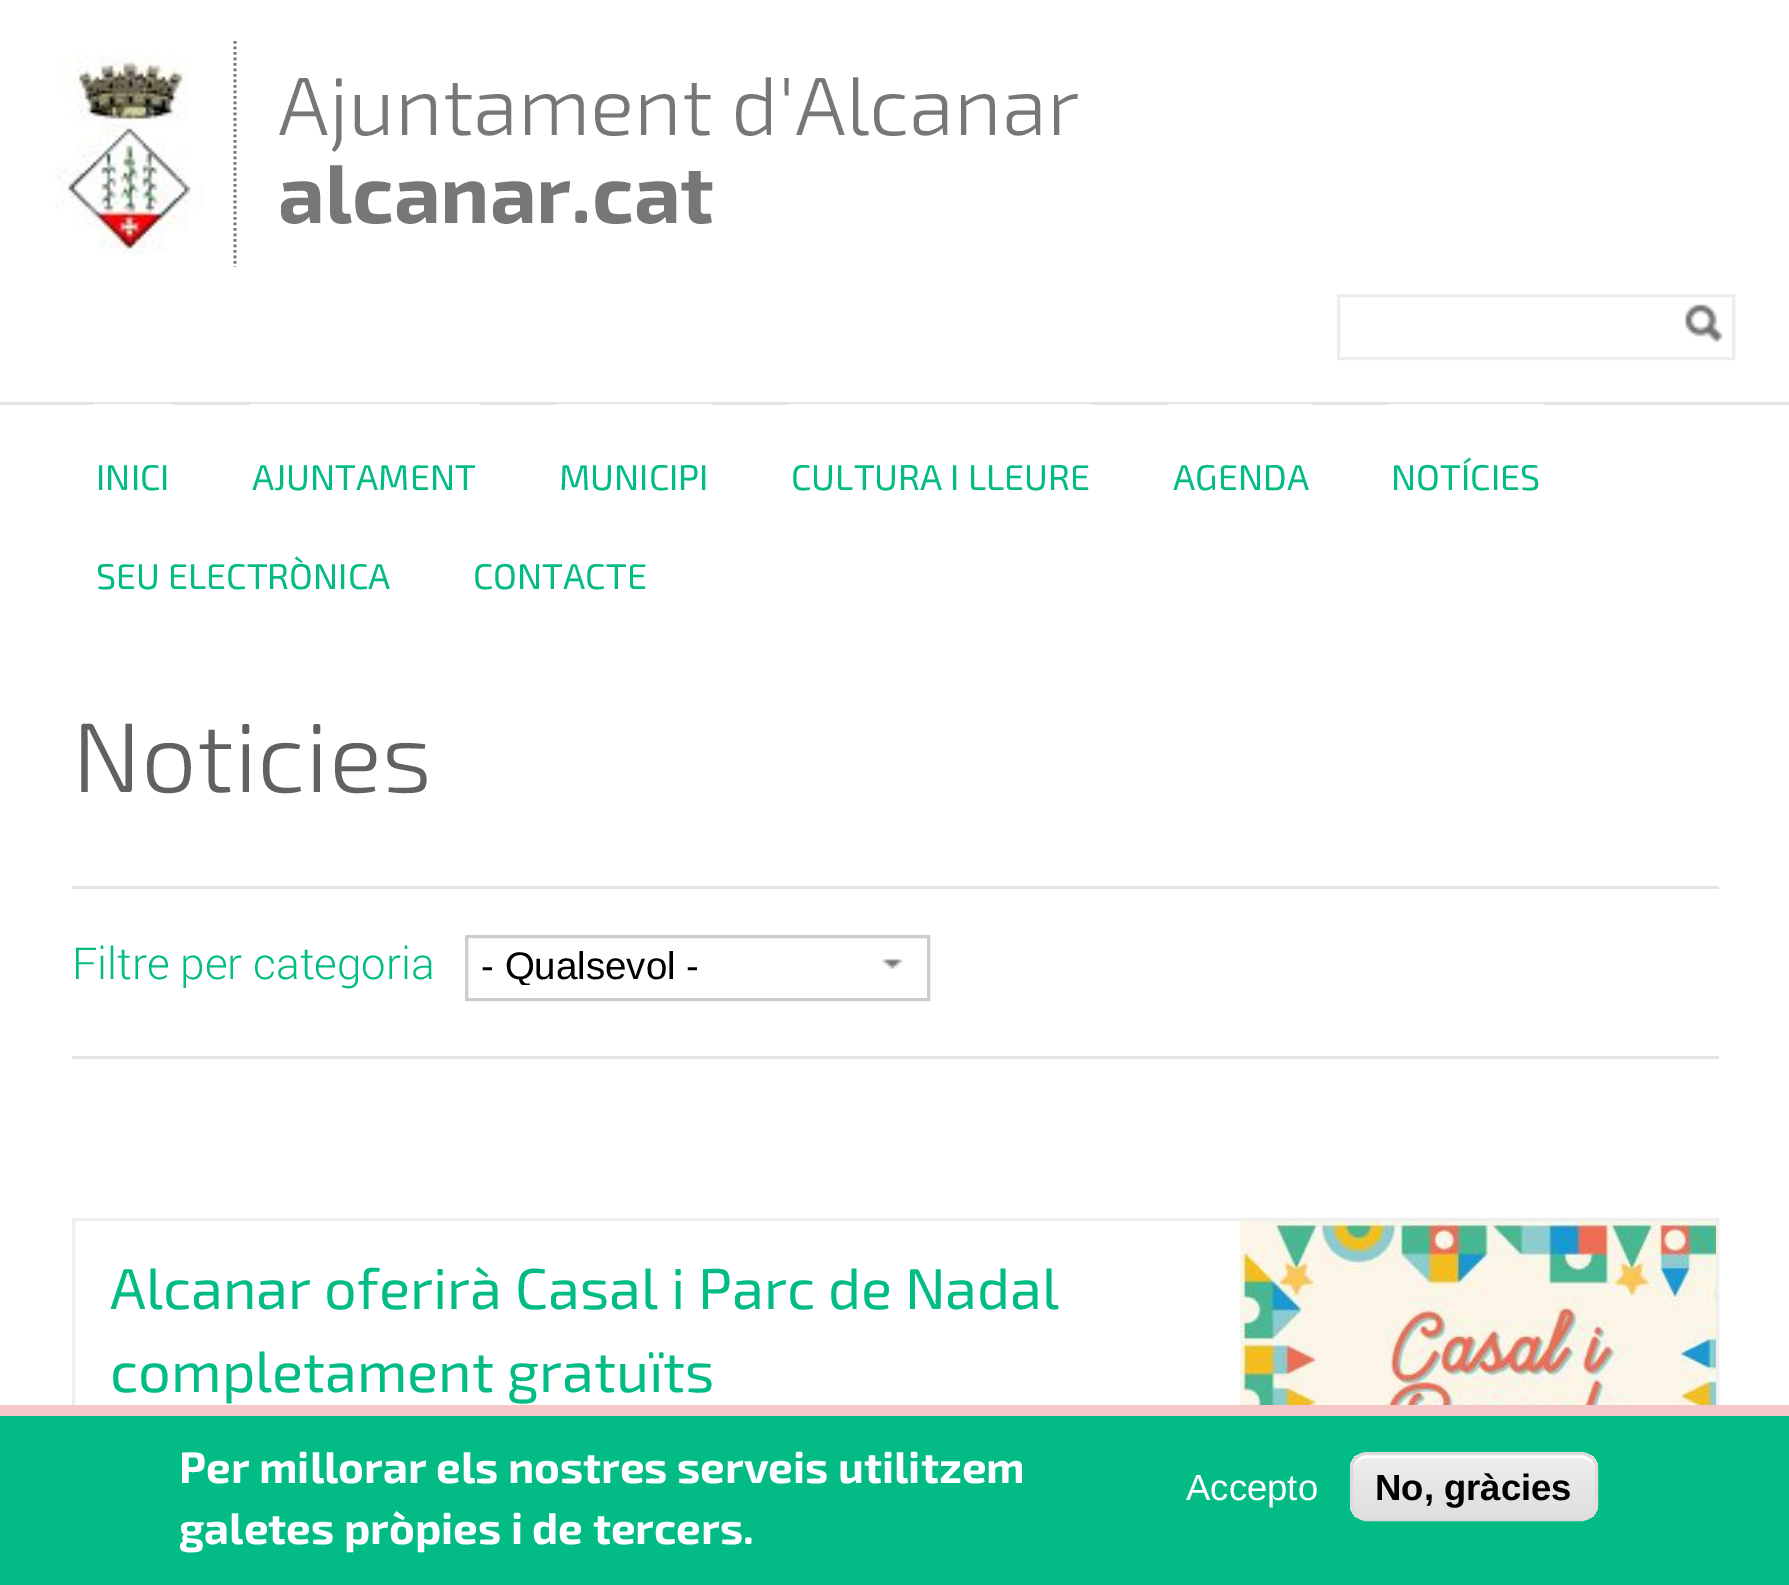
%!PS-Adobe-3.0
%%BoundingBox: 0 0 1789 1585
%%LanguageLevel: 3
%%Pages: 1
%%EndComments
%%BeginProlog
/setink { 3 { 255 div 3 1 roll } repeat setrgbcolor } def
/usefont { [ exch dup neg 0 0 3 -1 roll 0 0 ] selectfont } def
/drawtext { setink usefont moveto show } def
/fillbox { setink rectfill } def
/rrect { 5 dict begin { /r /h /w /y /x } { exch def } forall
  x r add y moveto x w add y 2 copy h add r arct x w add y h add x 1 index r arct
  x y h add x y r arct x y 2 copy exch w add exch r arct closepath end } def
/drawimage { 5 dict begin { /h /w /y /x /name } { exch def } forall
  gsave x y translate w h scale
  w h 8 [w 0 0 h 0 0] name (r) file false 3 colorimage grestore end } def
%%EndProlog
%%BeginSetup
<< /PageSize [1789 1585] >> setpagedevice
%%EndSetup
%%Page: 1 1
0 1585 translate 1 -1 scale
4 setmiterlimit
0 0 1789 1585 255 255 255 fillbox
(assets/img1.rgb) 55 55 148 201 drawimage
119 119 119 setink
2.8 setlinewidth
[2.75 2.75] 0 setdash
235 41 moveto 235 267 lineto stroke
(Ajuntament d'Alcanar) 278 135 /Exo2-Light 82.5 119 119 119 drawtext
(alcanar.cat) 278 223 /Exo2-Bold 82.5 119 119 119 drawtext
237 237 237 setink
3 setlinewidth
[] 0 setdash
1338.5 295.5 395 63 rectstroke
(assets/img2.rgb) 1685 304 38 38 drawimage
0 402 1789 3 228 228 228 fillbox
94 404 79 1 255 255 255 fillbox
(INICI) 96 490 /Exo2-Regular 35.75 3 187 133 drawtext
250 404 229 1 255 255 255 fillbox
(AJUNTAMENT) 252 490 /Exo2-Regular 35.75 3 187 133 drawtext
556 404 156 1 255 255 255 fillbox
(MUNICIPI) 559 490 /Exo2-Regular 35.75 3 187 133 drawtext
789 404 303 1 255 255 255 fillbox
(CULTURA I LLEURE) 791 490 /Exo2-Regular 35.75 3 187 133 drawtext
1169 404 143 1 255 255 255 fillbox
(AGENDA) 1173 490 /Exo2-Regular 35.75 3 187 133 drawtext
1389 404 154 1 255 255 255 fillbox
(NOTÍCIES) 1391 490 /Exo2-Regular 35.75 3 187 133 drawtext
(SEU ELECTRÒNICA) 96 589 /Exo2-Regular 35.75 3 187 133 drawtext
(CONTACTE) 473 589 /Exo2-Regular 35.75 3 187 133 drawtext
(Noticies) 72 792 /Exo2-Light 99 97 97 97 drawtext
72 886 1647 3 228 228 228 fillbox
72 1056 1647 3 228 228 228 fillbox
(Filtre per categoria) 72 979 /Roboto-Light 44 3 187 133 drawtext
(assets/img3.rgb) 882 959 21 10 drawimage
204 204 204 setink
466.5 936.5 462 63 rectstroke
gsave
481 946 446 39 rectclip
(- Qualsevol -) 481 979 /LiberationSans-Regular 38.5 0 0 0 drawtext
grestore
238 238 238 setink
73.5 1219.5 1644 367 rectstroke
(Alcanar oferirà Casal i Parc de Nadal) 110 1309 /Exo2-Regular 57.75 3 187 133 drawtext
(completament gratuïts) 110 1392 /Exo2-Regular 57.75 3 187 133 drawtext
(assets/img4.rgb) 1240 1221 476 184 drawimage
0 1416 1789 169 3 187 133 fillbox
0 1405 1789 11 245 199 199 fillbox
(Per millorar els nostres serveis utilitzem) 179 1483 /Exo2-Bold 44 255 255 255 drawtext
(galetes pròpies i de tercers.) 179 1544 /Exo2-Bold 44 255 255 255 drawtext
(Accepto) 1186 1500 /LiberationSans-Regular 36.5 255 255 255 drawtext
gsave
1350 1452 248 69 17 rrect clip newpath
gsave 1350 1455 moveto 1598 1455 lineto 1598 1518 lineto 1350 1518 lineto closepath clip newpath
<< /ShadingType 2 /ColorSpace /DeviceRGB /Coords [1474 1455 1474 1518] /Extend [true true] /Function << /FunctionType 3 /Domain [0 1] /Functions [<< /FunctionType 2 /Domain [0 1] /C0 [0.929 0.929 0.929] /C1 [0.929 0.929 0.929] /N 1 >> << /FunctionType 2 /Domain [0 1] /C0 [0.929 0.929 0.929] /C1 [0.875 0.875 0.875] /N 1 >>] /Bounds [0.05] /Encode [0 1 0 1] >> >> shfill grestore
grestore
1367 1458 moveto 1581 1458 lineto 1589 1458 1595 1464 1595 1471 curveto 1595 1469 lineto 1595 1461 1589 1455 1581 1455 curveto 1367 1455 lineto 1359 1455 1353 1461 1353 1469 curveto 1353 1471 lineto 1353 1464 1359 1458 1367 1458 curveto closepath fill
220 220 220 setink
1351.5 1453.5 245 66 15.5 rrect stroke
(No, gràcies) 1375 1500 /LiberationSans-Bold 36.5 0 0 0 drawtext
showpage
%%EOF
